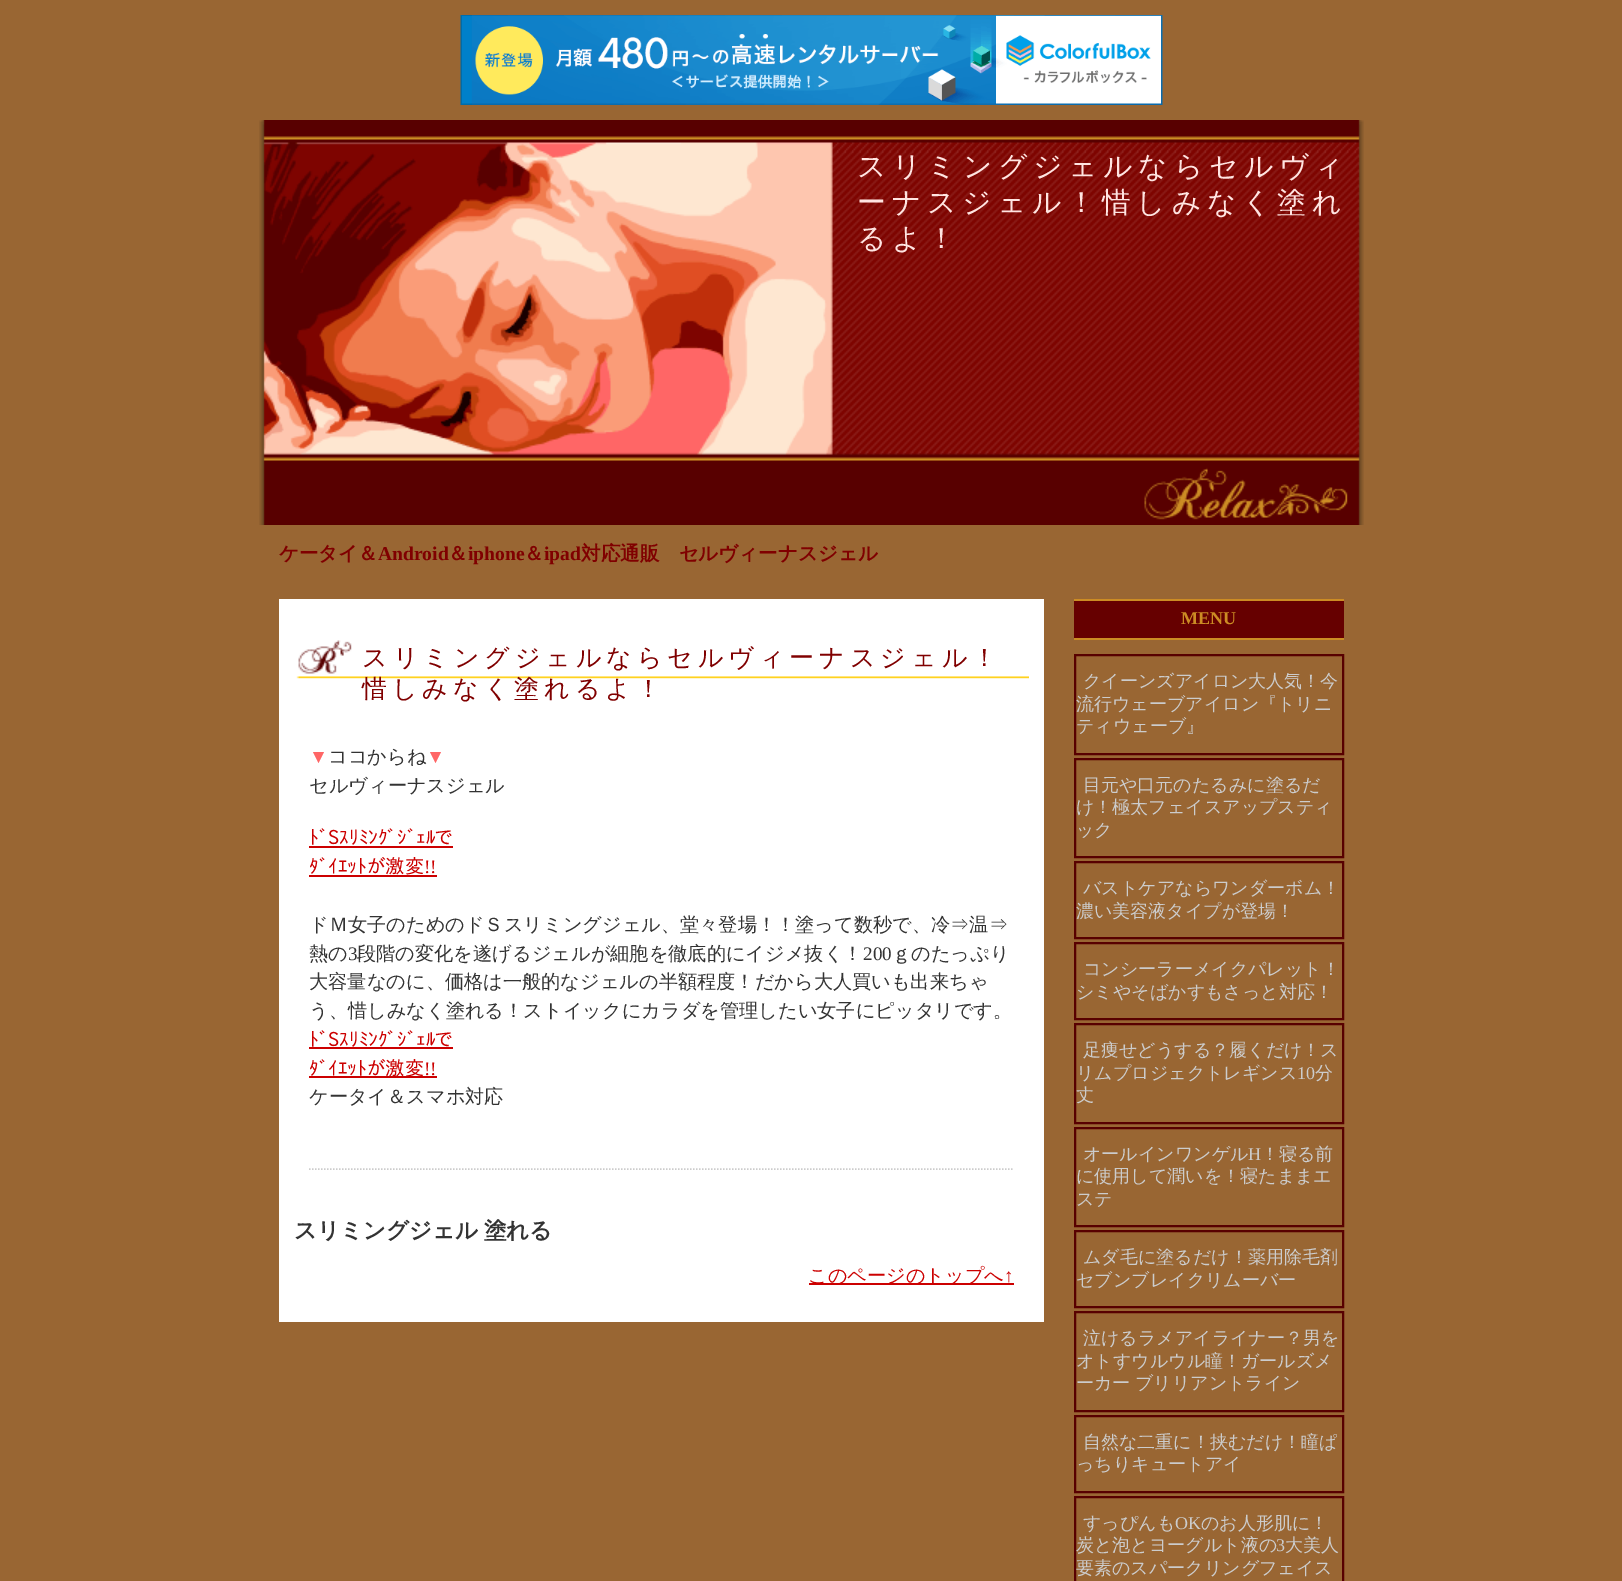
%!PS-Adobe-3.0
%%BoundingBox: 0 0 1622 1581
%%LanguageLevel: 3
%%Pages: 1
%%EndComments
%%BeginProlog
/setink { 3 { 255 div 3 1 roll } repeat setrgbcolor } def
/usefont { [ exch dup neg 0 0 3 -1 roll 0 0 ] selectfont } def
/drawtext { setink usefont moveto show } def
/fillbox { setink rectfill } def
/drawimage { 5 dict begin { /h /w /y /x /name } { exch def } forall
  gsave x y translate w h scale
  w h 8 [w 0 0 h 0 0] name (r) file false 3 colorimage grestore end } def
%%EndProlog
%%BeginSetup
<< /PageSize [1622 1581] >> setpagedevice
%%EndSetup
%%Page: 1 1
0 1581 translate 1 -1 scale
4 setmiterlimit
0 0 1622 1581 153 102 51 fillbox
(assets/img1.rgb) 460 15 703 90 drawimage
(assets/img2.rgb) 259 120 1105 405 drawimage
/WenQuanYiZenHei-Medium 28.75 usefont
255 228 225 setink
857 176 moveto 5.75 0 (スリミングジェルならセルヴィ) ashow
857 212 moveto 5.75 0 (ーナスジェル！惜しみなく塗れ) ashow
857 248 moveto 5.75 0 (るよ！) ashow
(ケータイ＆) 279 560 /WenQuanYiZenHei-Bold 19.5 128 0 0 drawtext
(Android) 378 560 /LiberationSerif-Bold 19.5 128 0 0 drawtext
(＆) 448 560 /WenQuanYiZenHei-Bold 19.5 128 0 0 drawtext
(iphone) 468 560 /LiberationSerif-Bold 19.5 128 0 0 drawtext
(＆) 524 560 /WenQuanYiZenHei-Bold 19.5 128 0 0 drawtext
(ipad) 544 560 /LiberationSerif-Bold 19.5 128 0 0 drawtext
(対応通販　セルヴィーナスジェル) 581 560 /WenQuanYiZenHei-Bold 19.5 128 0 0 drawtext
279 599 765 723 255 255 255 fillbox
(assets/img3.rgb) 296 640 733 39 drawimage
/WenQuanYiZenHei-Medium 24.95 usefont
128 0 0 setink
362 666 moveto 5 0 (スリミングジェルならセルヴィーナスジェル！) ashow
362 697 moveto 5 0 (惜しみなく塗れるよ！) ashow
204 204 204 setink
1.5 setlinewidth
[1.5 1.5] 0 setdash
309 1169 moveto 1014 1169 lineto stroke
(▼) 309 763 /LiberationSerif-Regular 19.2 255 102 102 drawtext
(ココからね) 328 763 /WenQuanYiZenHei-Medium 19.2 51 51 51 drawtext
(▼) 426 763 /LiberationSerif-Regular 19.2 255 102 102 drawtext
(セルヴィーナスジェル) 309 792 /WenQuanYiZenHei-Medium 19.2 51 51 51 drawtext
(ﾄﾞSｽﾘﾐﾝｸﾞｼﾞｪﾙで) 309 844 /IPAPGothic-Regular 19.2 204 0 0 drawtext
309 846 144 2 204 0 0 fillbox
(ﾀﾞｲｴｯﾄが激変) 309 873 /IPAPGothic-Regular 19.2 204 0 0 drawtext
(!!) 424 873 /LiberationSerif-Regular 19.2 204 0 0 drawtext
309 875 128 2 204 0 0 fillbox
(ドＭ女子のためのドＳスリミングジェル、堂々登場！！塗って数秒で、冷⇒温⇒) 309 931 /WenQuanYiZenHei-Medium 19.2 51 51 51 drawtext
(熱の) 309 960 /WenQuanYiZenHei-Medium 19.2 51 51 51 drawtext
(3) 348 960 /LiberationSerif-Regular 19.2 51 51 51 drawtext
(段階の変化を遂げるジェルが細胞を徹底的にイジメ抜く！) 357 960 /WenQuanYiZenHei-Medium 19.2 51 51 51 drawtext
(200) 863 960 /LiberationSerif-Regular 19.2 51 51 51 drawtext
(ｇのたっぷり) 892 960 /WenQuanYiZenHei-Medium 19.2 51 51 51 drawtext
(大容量なのに、価格は一般的なジェルの半額程度！だから大人買いも出来ちゃ) 309 988 /WenQuanYiZenHei-Medium 19.2 51 51 51 drawtext
(う、惜しみなく塗れる！ストイックにカラダを管理したい女子にピッタリです。) 309 1017 /WenQuanYiZenHei-Medium 19.2 51 51 51 drawtext
(ﾄﾞSｽﾘﾐﾝｸﾞｼﾞｪﾙで) 309 1046 /IPAPGothic-Regular 19.2 204 0 0 drawtext
309 1047 144 2 204 0 0 fillbox
309 1076 128 2 204 0 0 fillbox
(ﾀﾞｲｴｯﾄが激変) 309 1075 /IPAPGothic-Regular 19.2 204 0 0 drawtext
(!!) 424 1075 /LiberationSerif-Regular 19.2 204 0 0 drawtext
(ケータイ＆スマホ対応) 309 1103 /WenQuanYiZenHei-Medium 19.2 51 51 51 drawtext
/WenQuanYiZenHei-Bold 22.5 usefont
294 1238 moveto -1 0 32 (スリミングジェル 塗れる) widthshow
809 1283 205 2 204 0 0 fillbox
(このページのトップへ) 808 1282 /WenQuanYiZenHei-Medium 19.2 204 0 0 drawtext
(↑) 1004 1282 /LiberationSerif-Regular 19.2 204 0 0 drawtext
1074 601 270 37 102 0 0 fillbox
1074 599 270 2 204 140 36 fillbox
1074 638 270 2 204 140 36 fillbox
(MENU) 1181 624 /LiberationSerif-Bold 18 204 140 36 drawtext
88 0 0 setink
2 setlinewidth
[] 0 setdash
1075 655 268 99 rectstroke
(クイーンズアイロン大人気！今) 1083 687 /WenQuanYiZenHei-Medium 18 204 204 204 drawtext
(流行ウェーブアイロン『トリニ) 1076 710 /WenQuanYiZenHei-Medium 18 204 204 204 drawtext
(ティウェーブ』) 1076 732 /WenQuanYiZenHei-Medium 18 204 204 204 drawtext
88 0 0 setink
1075 759 268 98 rectstroke
(目元や口元のたるみに塗るだ) 1083 791 /WenQuanYiZenHei-Medium 18 204 204 204 drawtext
(け！極太フェイスアップスティ) 1076 813 /WenQuanYiZenHei-Medium 18 204 204 204 drawtext
(ック) 1076 836 /WenQuanYiZenHei-Medium 18 204 204 204 drawtext
88 0 0 setink
1075 862 268 76 rectstroke
(バストケアならワンダーボム！) 1083 894 /WenQuanYiZenHei-Medium 18 204 204 204 drawtext
(濃い美容液タイプが登場！) 1076 917 /WenQuanYiZenHei-Medium 18 204 204 204 drawtext
88 0 0 setink
1075 943 268 76 rectstroke
(コンシーラーメイクパレット！) 1083 975 /WenQuanYiZenHei-Medium 18 204 204 204 drawtext
(シミやそばかすもさっと対応！) 1076 998 /WenQuanYiZenHei-Medium 18 204 204 204 drawtext
88 0 0 setink
1075 1024 268 99 rectstroke
(足痩せどうする？履くだけ！ス) 1083 1056 /WenQuanYiZenHei-Medium 18 204 204 204 drawtext
(リムプロジェクトレギンス) 1076 1079 /WenQuanYiZenHei-Medium 18 204 204 204 drawtext
(10) 1297 1079 /LiberationSerif-Regular 18 204 204 204 drawtext
(分) 1315 1079 /WenQuanYiZenHei-Medium 18 204 204 204 drawtext
(丈) 1076 1101 /WenQuanYiZenHei-Medium 18 204 204 204 drawtext
88 0 0 setink
1075 1128 268 98 rectstroke
(オールインワンゲル) 1083 1160 /WenQuanYiZenHei-Medium 18 204 204 204 drawtext
(H) 1248 1160 /LiberationSerif-Regular 18 204 204 204 drawtext
(！寝る前) 1261 1160 /WenQuanYiZenHei-Medium 18 204 204 204 drawtext
(に使用して潤いを！寝たままエ) 1076 1182 /WenQuanYiZenHei-Medium 18 204 204 204 drawtext
(ステ) 1076 1205 /WenQuanYiZenHei-Medium 18 204 204 204 drawtext
88 0 0 setink
1075 1231 268 76 rectstroke
(ムダ毛に塗るだけ！薬用除毛剤) 1083 1263 /WenQuanYiZenHei-Medium 18 204 204 204 drawtext
(セブンブレイクリムーバー) 1076 1286 /WenQuanYiZenHei-Medium 18 204 204 204 drawtext
88 0 0 setink
1075 1312 268 99 rectstroke
(泣けるラメアイライナー？男を) 1083 1344 /WenQuanYiZenHei-Medium 18 204 204 204 drawtext
(オトすウルウル瞳！ガールズメ) 1076 1367 /WenQuanYiZenHei-Medium 18 204 204 204 drawtext
1076 1389 moveto -1 0 32 (ーカー ブリリアントライン) widthshow
88 0 0 setink
1075 1416 268 76 rectstroke
(自然な二重に！挟むだけ！瞳ぱ) 1083 1448 /WenQuanYiZenHei-Medium 18 204 204 204 drawtext
(っちりキュートアイ) 1076 1470 /WenQuanYiZenHei-Medium 18 204 204 204 drawtext
88 0 0 setink
1075 1497 268 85 rectstroke
(すっぴんも) 1083 1529 /WenQuanYiZenHei-Medium 18 204 204 204 drawtext
(OK) 1175 1529 /LiberationSerif-Regular 18 204 204 204 drawtext
(のお人形肌に！) 1201 1529 /WenQuanYiZenHei-Medium 18 204 204 204 drawtext
(炭と泡とヨーグルト液の) 1076 1551 /WenQuanYiZenHei-Medium 18 204 204 204 drawtext
(3) 1276 1551 /LiberationSerif-Regular 18 204 204 204 drawtext
(大美人) 1285 1551 /WenQuanYiZenHei-Medium 18 204 204 204 drawtext
(要素のスパークリングフェイス) 1076 1574 /WenQuanYiZenHei-Medium 18 204 204 204 drawtext
showpage
%%EOF
